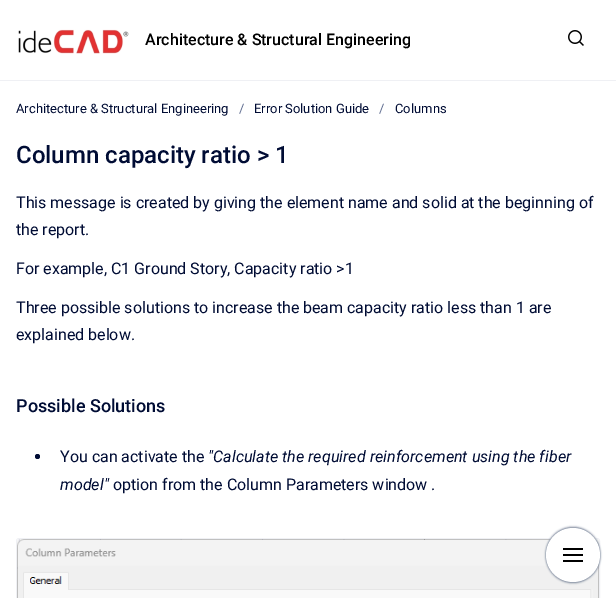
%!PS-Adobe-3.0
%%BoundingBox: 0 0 616 598
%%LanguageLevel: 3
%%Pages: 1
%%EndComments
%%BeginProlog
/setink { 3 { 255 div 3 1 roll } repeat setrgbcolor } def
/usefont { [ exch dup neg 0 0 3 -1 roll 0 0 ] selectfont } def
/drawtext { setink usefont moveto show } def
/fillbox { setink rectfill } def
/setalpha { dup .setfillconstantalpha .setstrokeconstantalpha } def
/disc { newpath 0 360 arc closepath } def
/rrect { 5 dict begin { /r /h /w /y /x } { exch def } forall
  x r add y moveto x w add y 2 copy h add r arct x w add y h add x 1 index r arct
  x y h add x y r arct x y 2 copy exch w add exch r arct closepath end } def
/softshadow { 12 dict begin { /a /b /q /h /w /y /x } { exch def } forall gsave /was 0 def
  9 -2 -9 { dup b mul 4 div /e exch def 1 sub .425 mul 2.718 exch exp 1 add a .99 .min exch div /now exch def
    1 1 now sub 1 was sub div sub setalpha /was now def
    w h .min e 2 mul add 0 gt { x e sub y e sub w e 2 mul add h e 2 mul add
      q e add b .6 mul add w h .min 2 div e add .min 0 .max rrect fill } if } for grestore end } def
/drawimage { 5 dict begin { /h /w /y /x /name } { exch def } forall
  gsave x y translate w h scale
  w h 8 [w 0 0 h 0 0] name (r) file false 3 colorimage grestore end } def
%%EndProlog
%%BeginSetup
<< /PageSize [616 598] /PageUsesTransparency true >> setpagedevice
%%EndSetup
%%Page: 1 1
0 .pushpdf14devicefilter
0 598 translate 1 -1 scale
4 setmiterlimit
0 0 616 598 255 255 255 fillbox
0 80 616 1 239 240 244 fillbox
(assets/img1.rgb) 18 29 111 25 drawimage
(Architecture & Structural Engineering) 145 45 /Roboto-Medium 16 0 0 0 drawtext
(assets/img2.rgb) 568 30 16 16 drawimage
(Architecture & Structural Engineering) 16 113 /Roboto-Regular 13 0 12 52 drawtext
(/) 239 113 /Roboto-Regular 13 93 107 143 drawtext
(Error Solution Guide) 254 113 /Roboto-Regular 13 0 12 52 drawtext
(/) 379 113 /Roboto-Regular 13 93 107 143 drawtext
(Columns) 395 113 /Roboto-Regular 13 0 12 52 drawtext
(Column capacity ratio > 1) 16 163 /Roboto-Medium 24 0 12 52 drawtext
(This message is created by giving the element name and solid at the beginning of) 16 208 /Roboto-Regular 16 0 12 52 drawtext
(the report.) 16 235 /Roboto-Regular 16 0 12 52 drawtext
(For example, C1 Ground Story, Capacity ratio >1) 16 274 /Roboto-Regular 16 0 12 52 drawtext
(Three possible solutions to increase the beam capacity ratio less than 1 are) 16 313 /Roboto-Regular 16 0 12 52 drawtext
(explained below.) 16 340 /Roboto-Regular 16 0 12 52 drawtext
(Possible Solutions) 16 412 /Roboto-Medium 18 0 12 52 drawtext
37.5 456.5 2.5 disc fill
(You can activate the) 60 462 /Roboto-Regular 16 0 12 52 drawtext
("Calculate the required reinforcement using the fiber) 208 462 /Roboto-Italic 16 0 12 52 drawtext
(model") 60 490 /Roboto-Italic 16 0 12 52 drawtext
(option from the Column Parameters window .) 113 490 /Roboto-Regular 16 0 12 52 drawtext
239 240 244 setink
16.5 538.5 583 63 2.5 rrect stroke
(assets/img3.rgb) 17 539 582 59 drawimage
122 134 154 setink
546 527 54 54 27 1 1 softshadow
546 529 54 54 27 1 1 softshadow
255 255 255 setink
573 555 27 disc fill
563 548 20 2 0 0 0 fillbox
563 554 20 2 0 0 0 fillbox
563 560 20 2 0 0 0 fillbox
.poppdf14devicefilter showpage
%%EOF
